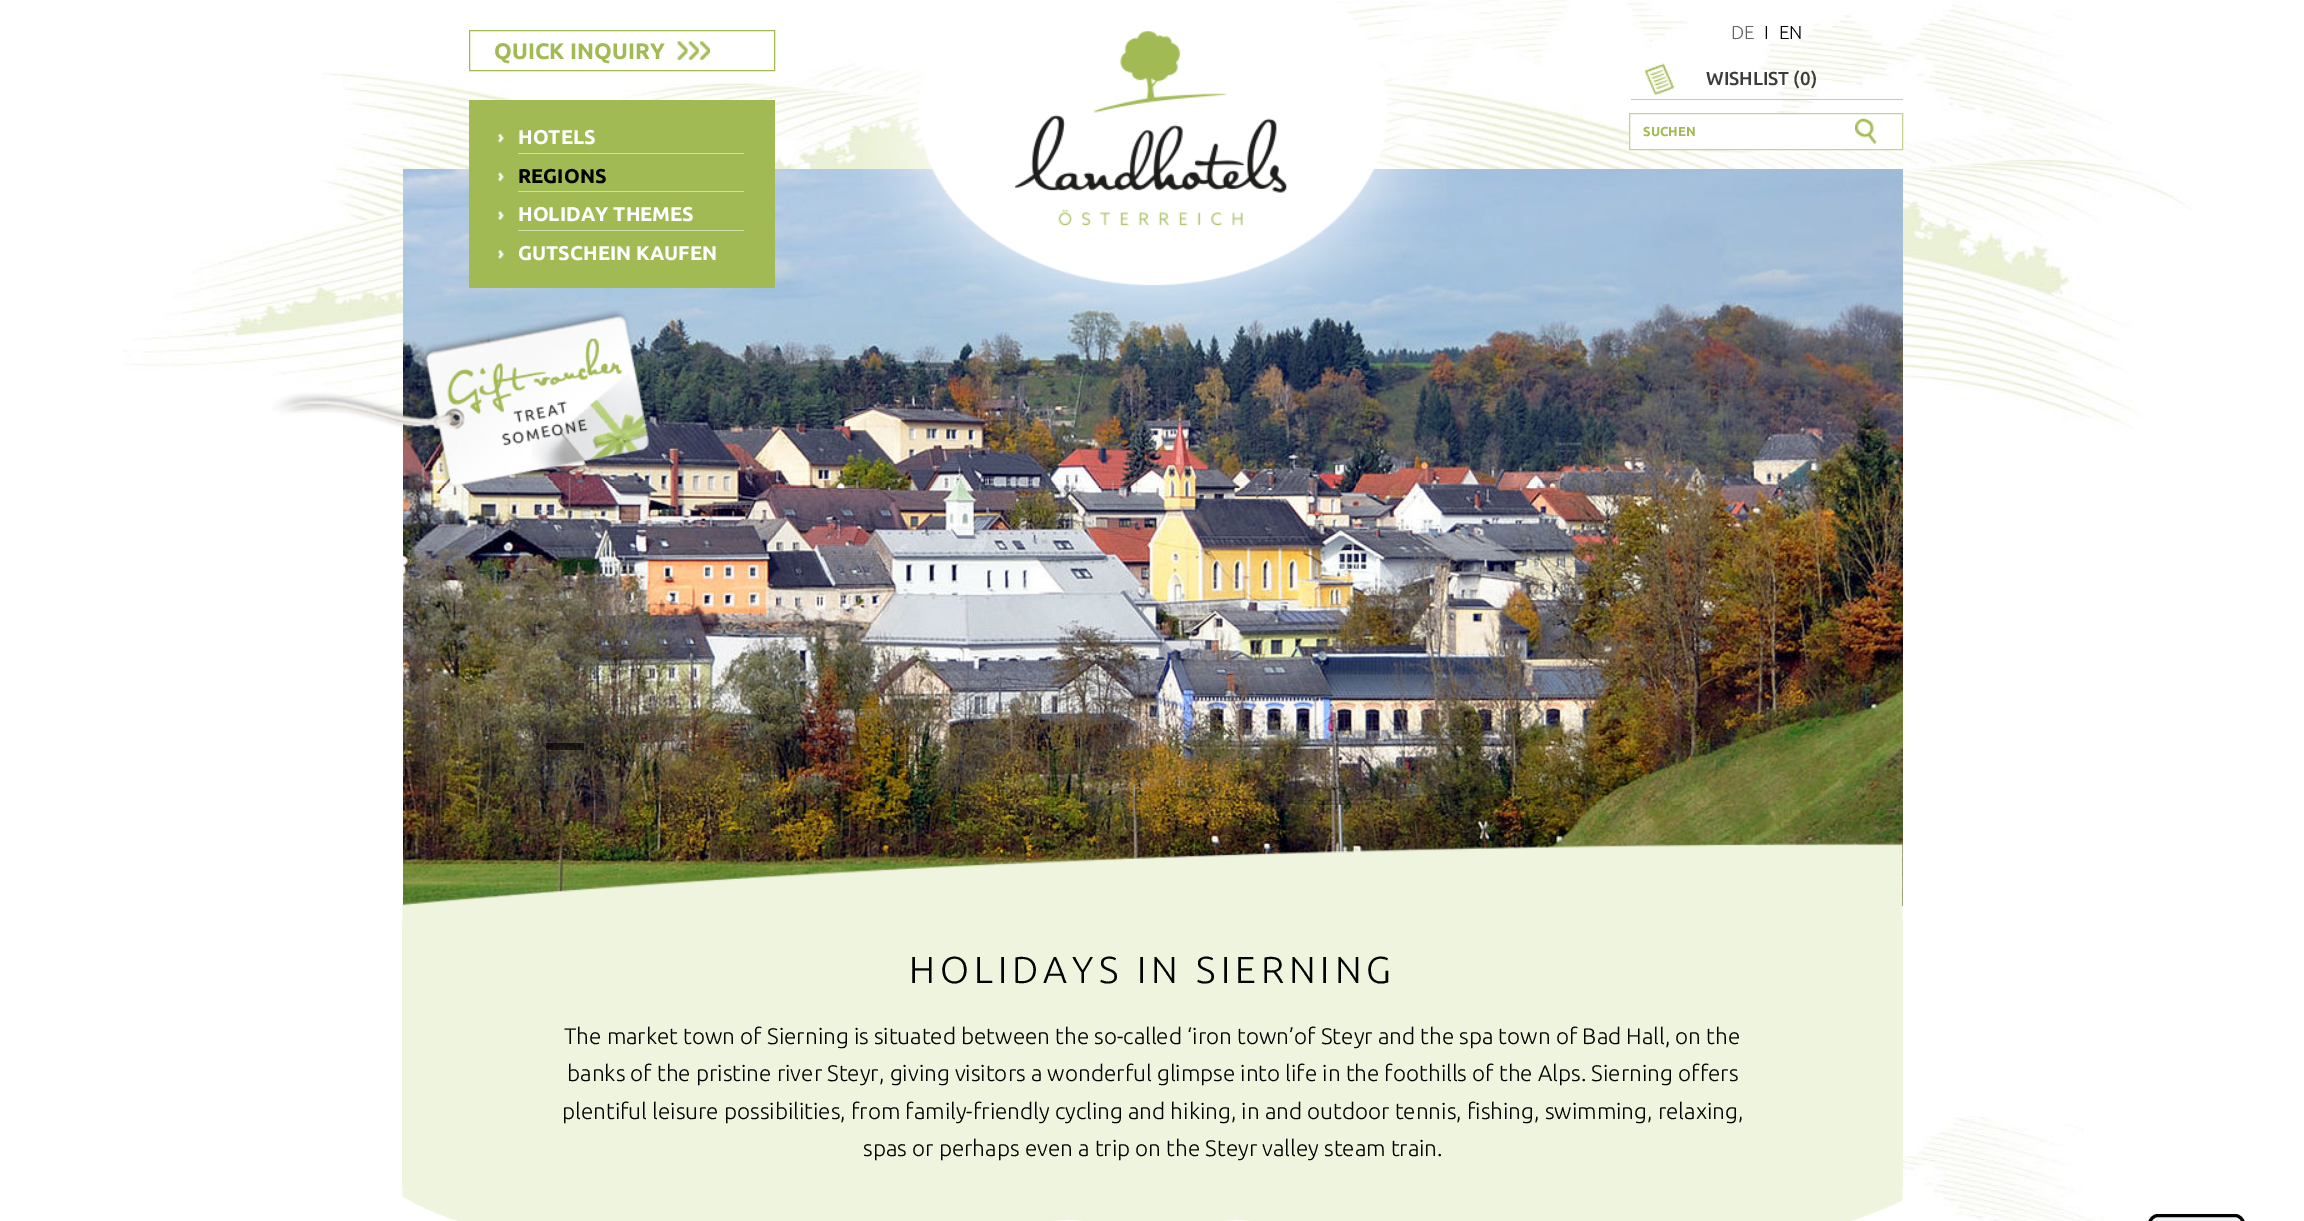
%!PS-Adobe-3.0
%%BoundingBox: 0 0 2304 1221
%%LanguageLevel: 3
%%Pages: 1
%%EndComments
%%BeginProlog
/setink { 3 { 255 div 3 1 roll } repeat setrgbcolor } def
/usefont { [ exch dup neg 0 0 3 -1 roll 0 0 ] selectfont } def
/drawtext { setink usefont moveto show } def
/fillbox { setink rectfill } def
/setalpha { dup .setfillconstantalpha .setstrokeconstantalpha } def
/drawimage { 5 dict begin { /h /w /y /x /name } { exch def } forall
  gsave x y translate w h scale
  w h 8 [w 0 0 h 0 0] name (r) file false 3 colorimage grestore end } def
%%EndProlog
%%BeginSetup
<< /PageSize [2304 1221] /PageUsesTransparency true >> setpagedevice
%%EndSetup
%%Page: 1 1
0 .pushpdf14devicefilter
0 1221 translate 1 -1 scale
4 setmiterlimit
0 0 2304 1221 255 255 255 fillbox
(assets/img1.rgb) 123 0 2069 454 drawimage
161 186 84 setink
469.5 30.5 305 40 rectstroke
(QUICK INQUIRY) 494 59 /Ubuntu-Bold 22.5 161 186 84 drawtext
(assets/img2.rgb) 677 41 11 19 drawimage
(assets/img3.rgb) 688 41 11 19 drawimage
(assets/img4.rgb) 700 41 10 19 drawimage
(assets/img13.rgb) 403 169 1500 737 drawimage
(assets/img5.rgb) 863 0 583 368 drawimage
(DE) 1731 39 /Ubuntu-Light 18.75 101 101 101 drawtext
(I) 1764 39 /Ubuntu-Light 18.75 0 0 0 drawtext
(EN) 1779 39 /Ubuntu-Light 18.75 0 0 0 drawtext
1631 99 272 1 196 210 144 fillbox
(assets/img6.rgb) 1644 63 30 32 drawimage
(WISHLIST \(0\)) 1706 85 /Ubuntu-Medium 18.75 60 60 59 drawtext
255 255 255 setink
1629.5 113.5 moveto 1902.5 113.5 lineto 1902.5 149.5 lineto 1629.5 149.5 lineto closepath gsave fill grestore
196 210 144 setink
stroke
(SUCHEN) 1643 136 /Ubuntu-Bold 13 161 186 84 drawtext
(assets/img7.rgb) 1855 118 22 26 drawimage
469 100 306 188 161 186 84 fillbox
(assets/img8.rgb) 497 133 7 10 drawimage
518 153 226 1 209 222 168 fillbox
(HOTELS) 518 144 /Ubuntu-Bold 20 255 255 255 drawtext
(assets/img9.rgb) 497 172 7 10 drawimage
518 191 226 1 209 222 168 fillbox
(REGIONS) 518 183 /Ubuntu-Bold 20 0 0 0 drawtext
(assets/img10.rgb) 497 211 7 9 drawimage
518 230 226 1 209 222 168 fillbox
(HOLIDAY THEMES) 518 221 /Ubuntu-Bold 20 255 255 255 drawtext
(assets/img11.rgb) 497 250 7 9 drawimage
(GUTSCHEIN KAUFEN) 518 260 /Ubuntu-Bold 20 255 255 255 drawtext
(assets/img12.rgb) 272 310 377 177 drawimage
0.66 setalpha
546 743 38 7 0 0 0 fillbox
1 setalpha
(assets/img14.rgb) 402 843 1501 78 drawimage
(assets/img16.rgb) 444 1116 1660 105 drawimage
402 921 1501 267 238 244 221 fillbox
/Ubuntu-Light 37.5 usefont
0 0 0 setink
909 983 moveto 5 0 (HOLIDAYS IN SIERNING) ashow
(The market town of Sierning is situated between the so-called ‘iron town’of Steyr and the spa town of Bad Hall, on the) 564 1044 /Ubuntu-Light 22.5 0 0 0 drawtext
(banks of the pristine river Steyr, giving visitors a wonderful glimpse into life in the foothills of the Alps. Sierning offers) 567 1081 /Ubuntu-Light 22.5 0 0 0 drawtext
(plentiful leisure possibilities, from family-friendly cycling and hiking, in and outdoor tennis, fishing, swimming, relaxing,) 562 1119 /Ubuntu-Light 22.5 0 0 0 drawtext
(spas or perhaps even a trip on the Steyr valley steam train.) 863 1156 /Ubuntu-Light 22.5 0 0 0 drawtext
(assets/img15.rgb) 402 1188 1501 33 drawimage
243 245 247 setink
2158 1215.5 moveto 2235 1215.5 lineto 2239.5 1215.5 2243.5 1219.5 2243.5 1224 curveto 2243.5 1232.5 lineto 2149.5 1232.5 lineto 2149.5 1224 lineto 2149.5 1219.5 2153.5 1215.5 2158 1215.5 curveto closepath gsave fill grestore
0 0 0 setink
3 setlinewidth
stroke
.poppdf14devicefilter showpage
%%EOF
